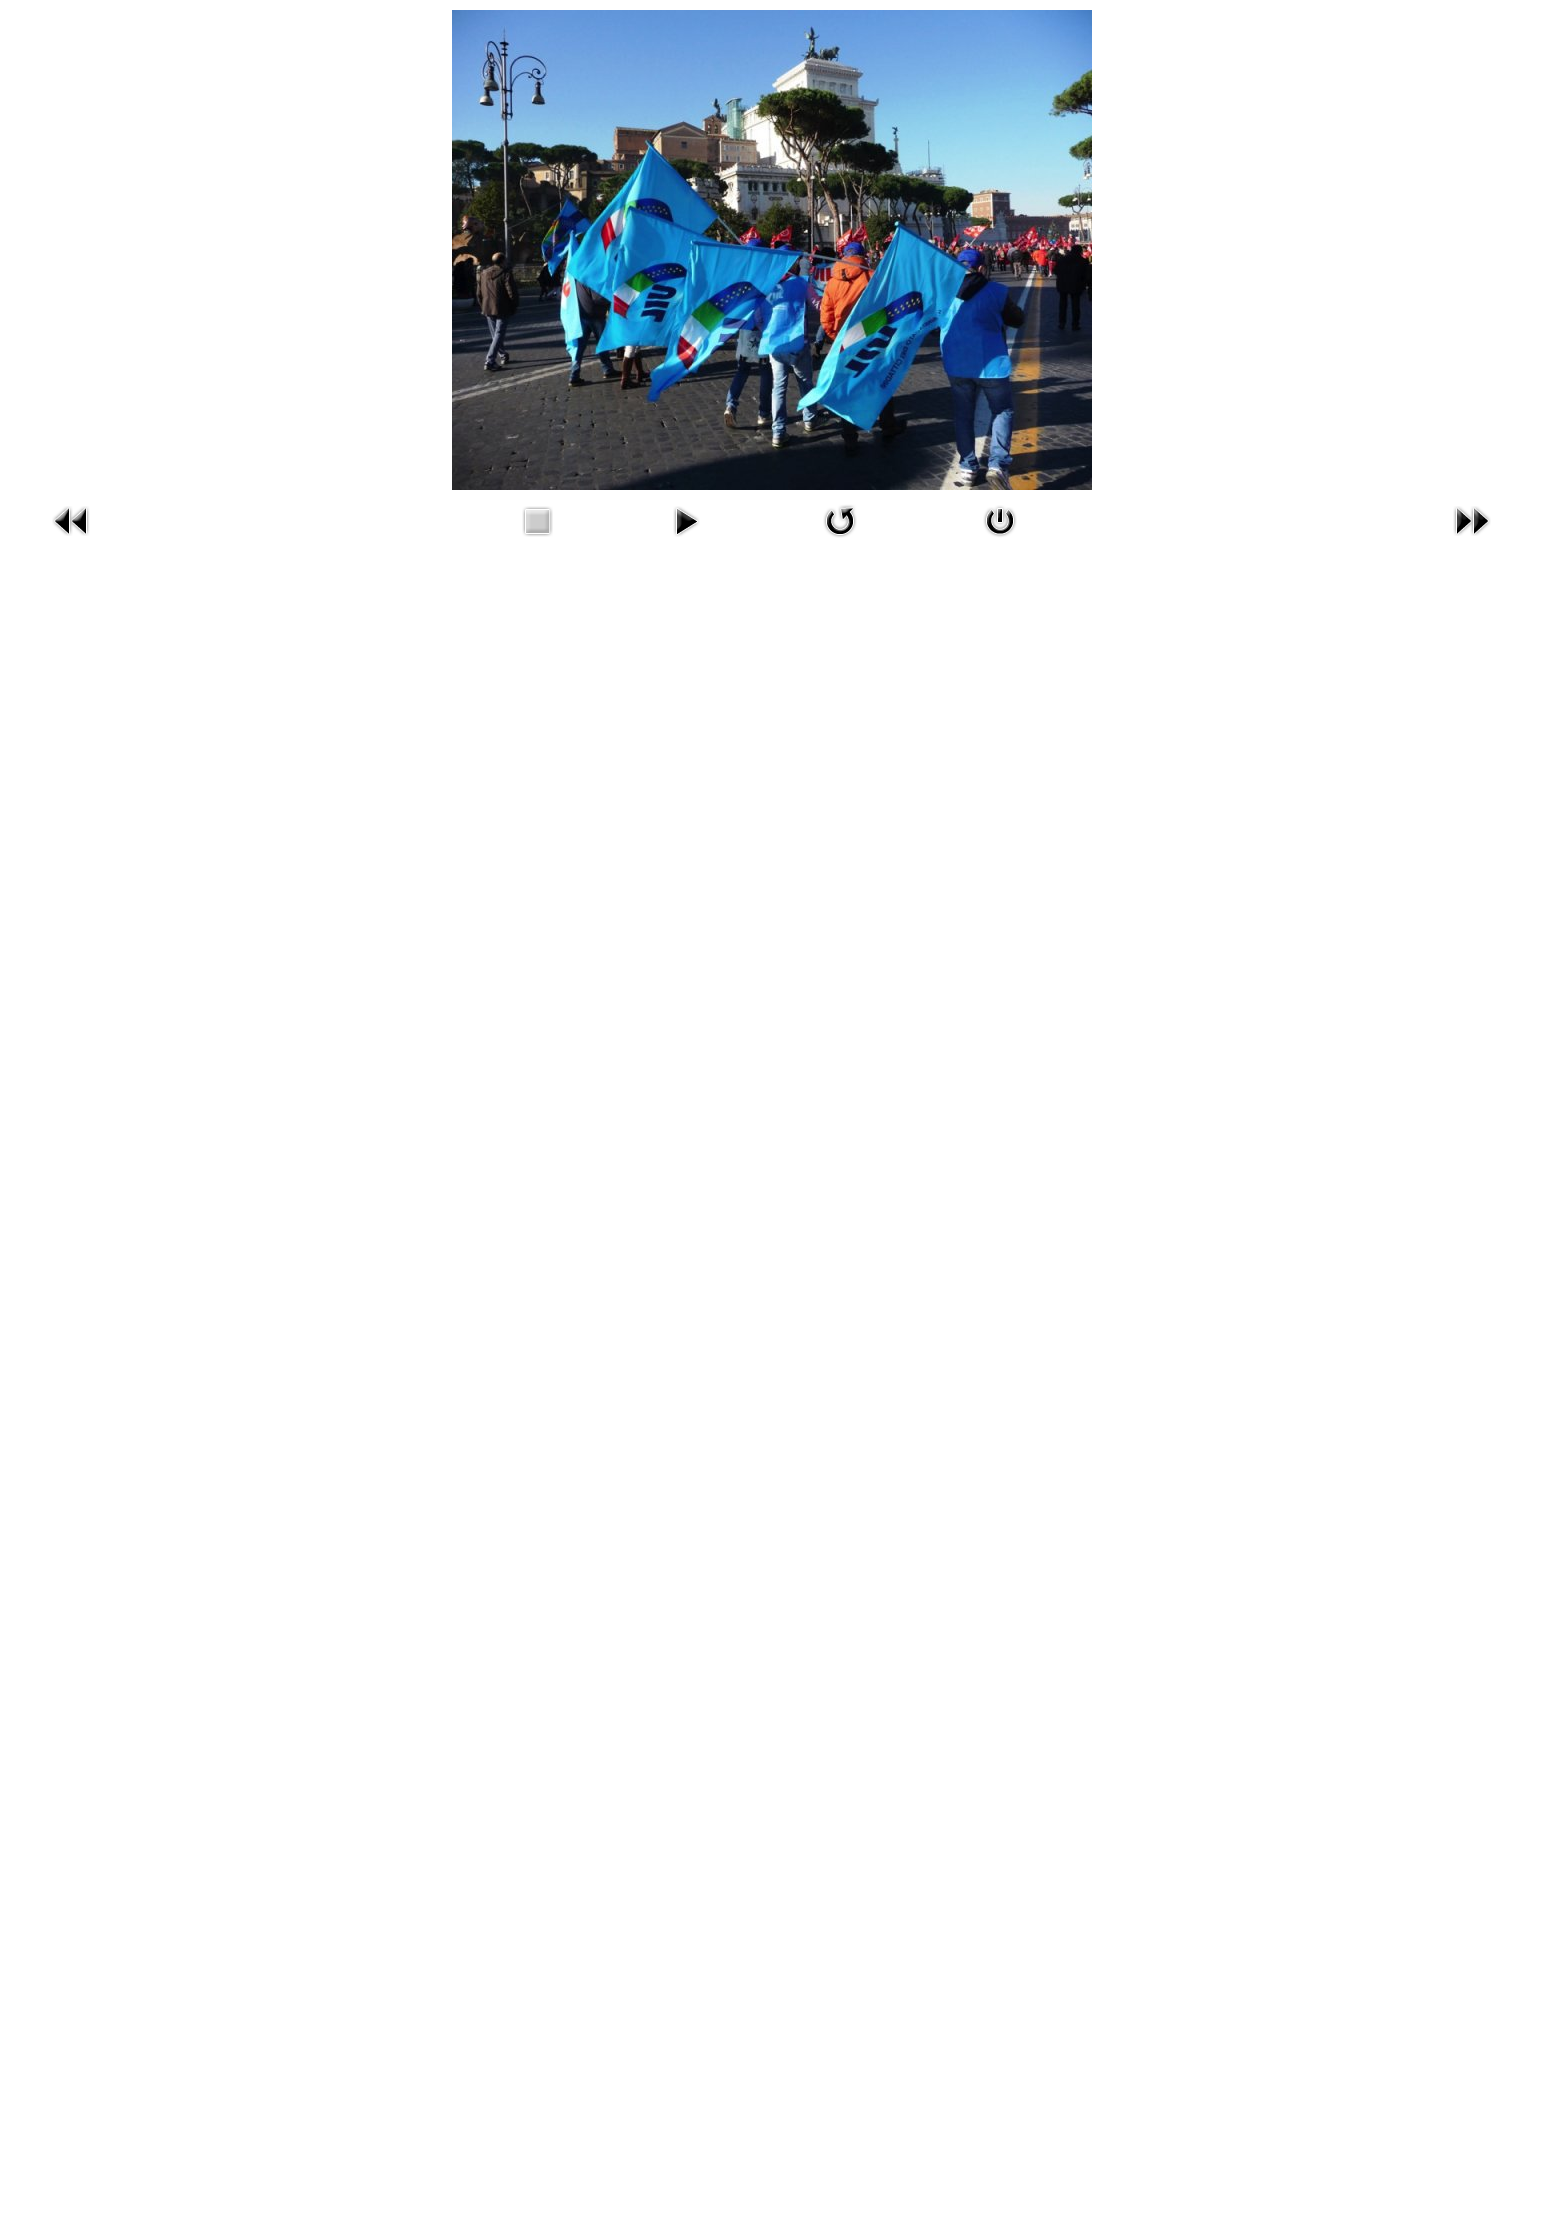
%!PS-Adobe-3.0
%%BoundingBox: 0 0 1544 2226
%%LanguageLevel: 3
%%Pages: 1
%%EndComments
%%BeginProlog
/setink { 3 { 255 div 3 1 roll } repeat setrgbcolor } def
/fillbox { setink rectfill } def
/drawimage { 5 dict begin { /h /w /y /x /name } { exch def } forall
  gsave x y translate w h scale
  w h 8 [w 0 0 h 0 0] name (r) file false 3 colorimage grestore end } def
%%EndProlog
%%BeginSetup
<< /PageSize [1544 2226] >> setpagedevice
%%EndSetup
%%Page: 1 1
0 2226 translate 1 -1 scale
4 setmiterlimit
0 0 1544 2226 255 255 255 fillbox
(assets/img1.rgb) 452 10 640 480 drawimage
(assets/img2.rgb) 52 506 38 30 drawimage
(assets/img3.rgb) 522 506 31 31 drawimage
(assets/img4.rgb) 673 506 27 31 drawimage
(assets/img5.rgb) 823 504 34 34 drawimage
(assets/img6.rgb) 983 505 34 33 drawimage
(assets/img7.rgb) 1453 506 38 30 drawimage
showpage
%%EOF
